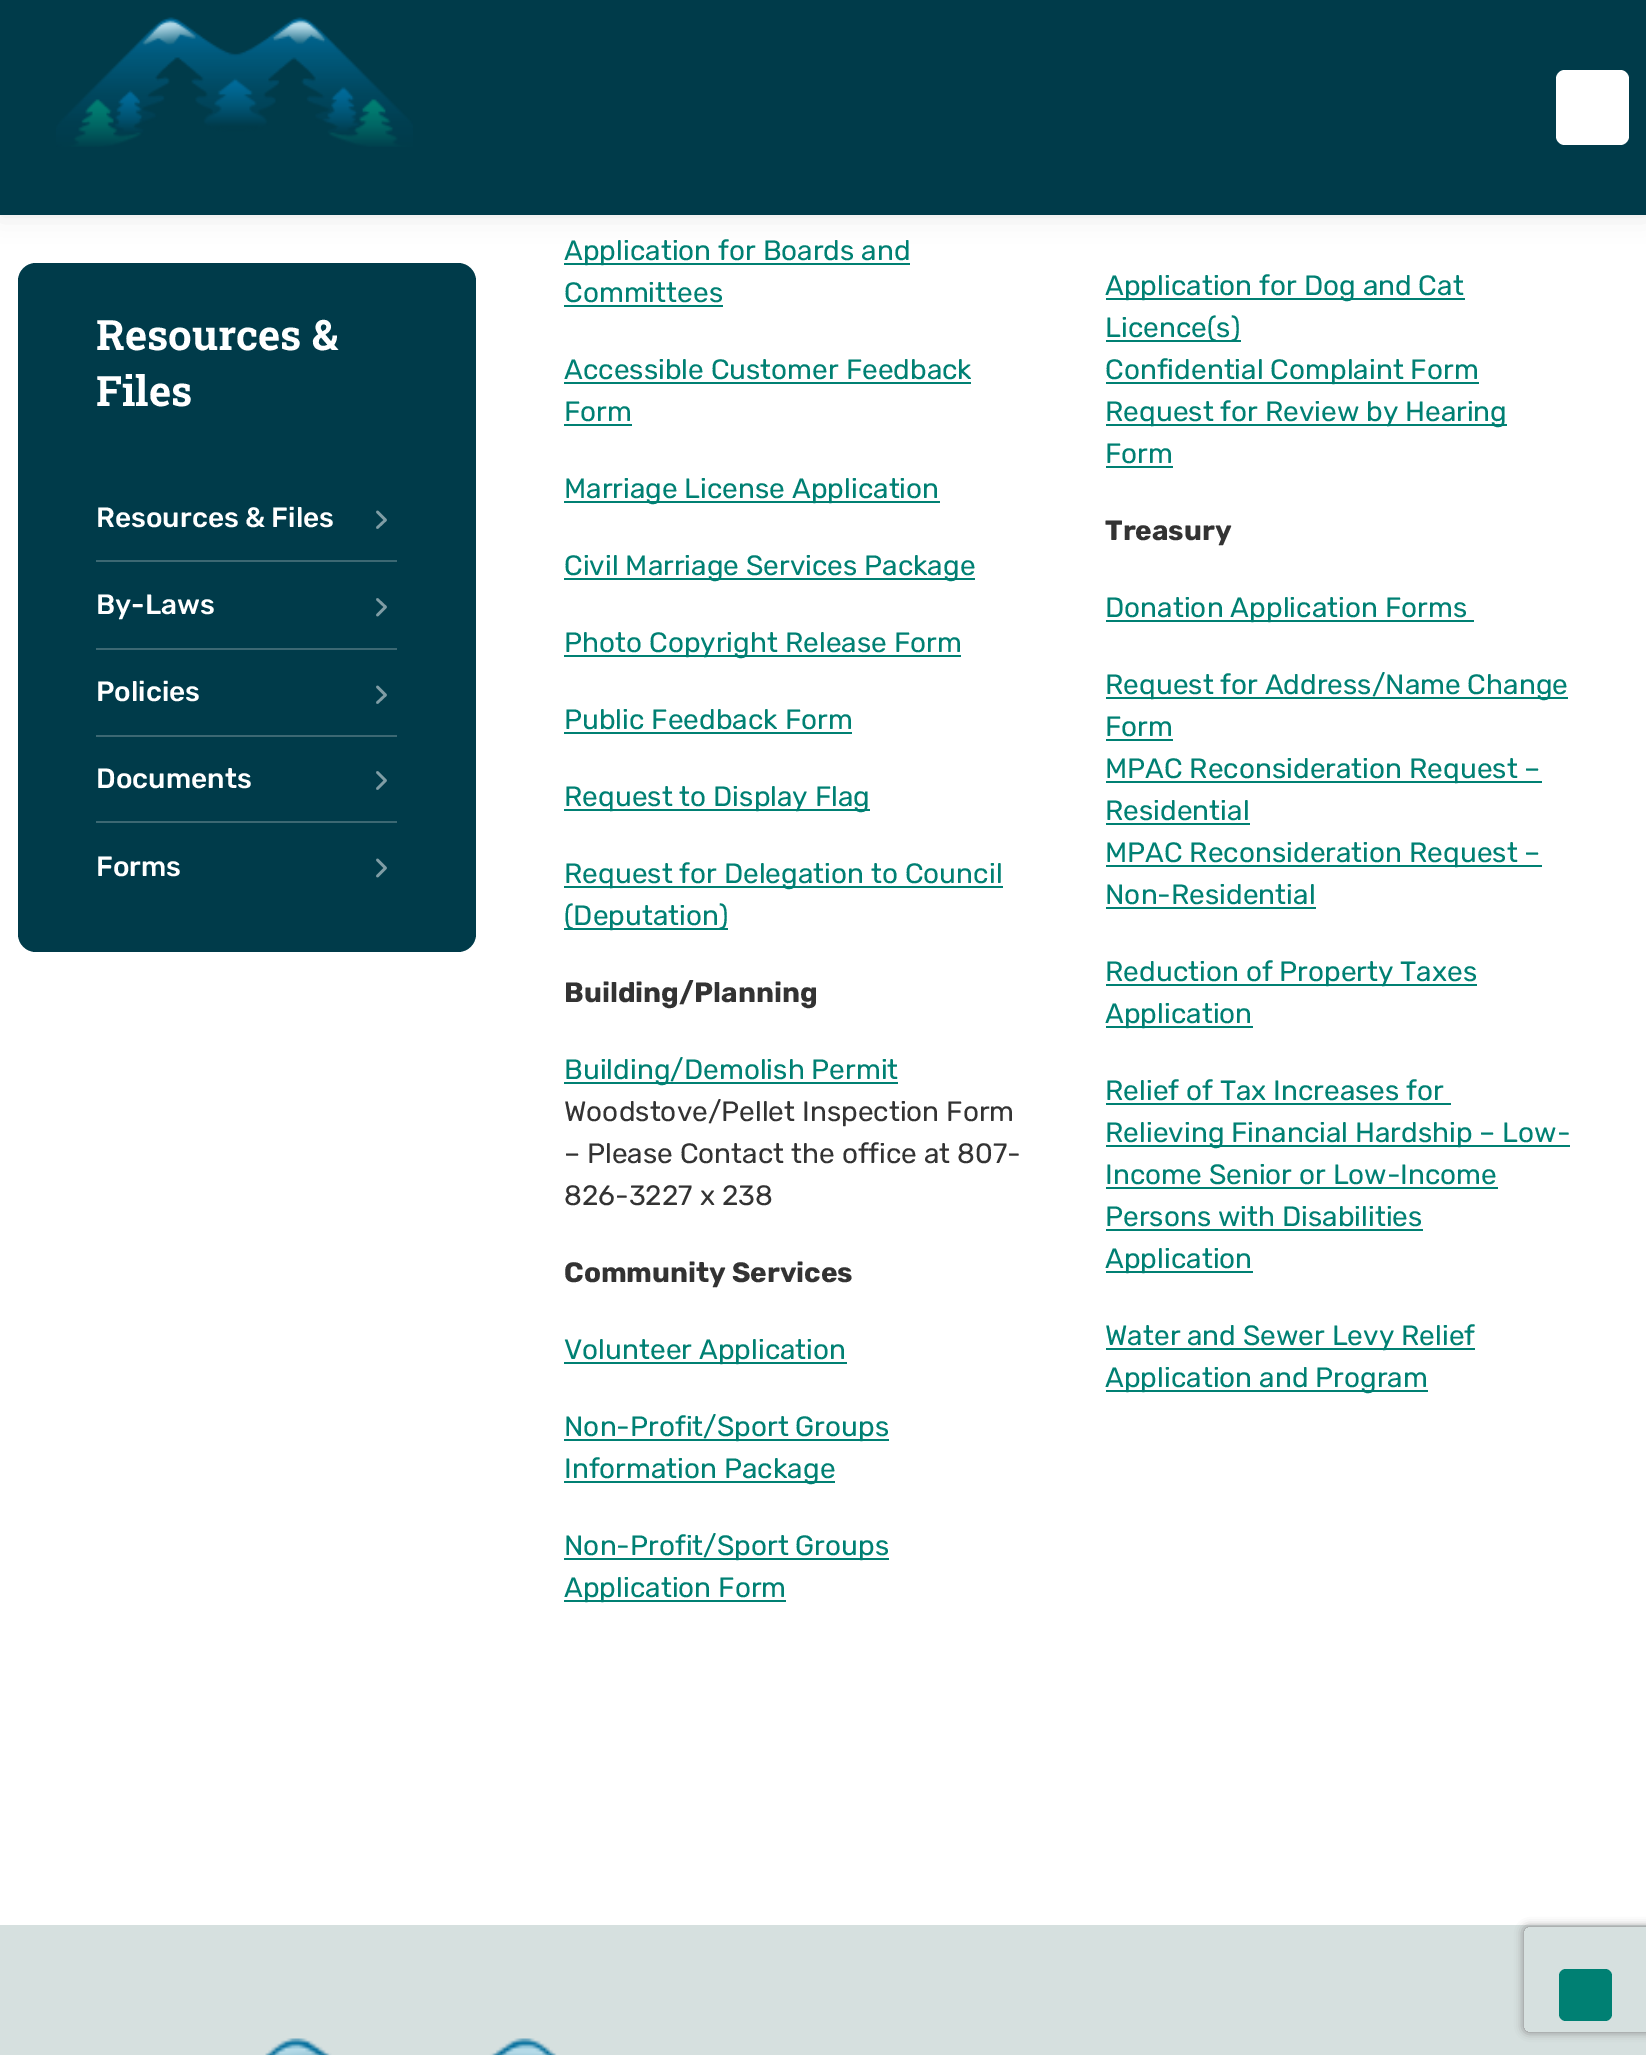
%!PS-Adobe-3.0
%%BoundingBox: 0 0 1646 2055
%%LanguageLevel: 3
%%Pages: 1
%%EndComments
%%BeginProlog
/setink { 3 { 255 div 3 1 roll } repeat setrgbcolor } def
/usefont { [ exch dup neg 0 0 3 -1 roll 0 0 ] selectfont } def
/drawtext { setink usefont moveto show } def
/fillbox { setink rectfill } def
/setalpha { dup .setfillconstantalpha .setstrokeconstantalpha } def
/rrect { 5 dict begin { /r /h /w /y /x } { exch def } forall
  x r add y moveto x w add y 2 copy h add r arct x w add y h add x 1 index r arct
  x y h add x y r arct x y 2 copy exch w add exch r arct closepath end } def
/softshadow { 12 dict begin { /a /b /q /h /w /y /x } { exch def } forall gsave /was 0 def
  9 -2 -9 { dup b mul 4 div /e exch def 1 sub .425 mul 2.718 exch exp 1 add a .99 .min exch div /now exch def
    1 1 now sub 1 was sub div sub setalpha /was now def
    w h .min e 2 mul add 0 gt { x e sub y e sub w e 2 mul add h e 2 mul add
      q e add b .6 mul add w h .min 2 div e add .min 0 .max rrect fill } if } for grestore end } def
/drawimage { 5 dict begin { /h /w /y /x /name } { exch def } forall
  gsave x y translate w h scale
  w h 8 [w 0 0 h 0 0] name (r) file false 3 colorimage grestore end } def
%%EndProlog
%%BeginSetup
<< /PageSize [1646 2055] /PageUsesTransparency true >> setpagedevice
%%EndSetup
%%Page: 1 1
0 .pushpdf14devicefilter
0 2055 translate 1 -1 scale
4 setmiterlimit
0 0 1646 2055 255 255 255 fillbox
0 0 0 setink
0 0 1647 215 0 13 0.1 softshadow
0 0 1646 215 0 59 74 fillbox
(assets/img1.rgb) 56 17 357 130 drawimage
255 255 255 setink
1556 70 73 75 9 rrect fill
0 59 74 setink
18 263 458 689 18 rrect fill
(Resources &) 96 350 /RobotoSlab-Bold 42 255 255 255 drawtext
(Files) 96 406 /RobotoSlab-Bold 42 255 255 255 drawtext
96 560 301 2 60 104 115 fillbox
(Resources & Files) 96 527 /Rubik-Medium 28 255 255 255 drawtext
128 157 165 setink
2.6 setlinewidth
1 setlinecap
1 setlinejoin
377.5 527.5 moveto 385.5 520 lineto 377.5 512 lineto stroke
96 648 301 2 60 104 115 fillbox
(By-Laws) 96 614 /Rubik-Medium 28 255 255 255 drawtext
128 157 165 setink
377.5 615 moveto 385.5 607 lineto 377.5 599.5 lineto stroke
96 735 301 2 60 104 115 fillbox
(Policies) 96 701 /Rubik-Medium 28 255 255 255 drawtext
128 157 165 setink
377.5 702.5 moveto 385.5 695 lineto 377.5 687 lineto stroke
96 821 301 2 60 104 115 fillbox
(Documents) 96 788 /Rubik-Medium 28 255 255 255 drawtext
128 157 165 setink
377.5 788.5 moveto 385.5 780.5 lineto 377.5 772.5 lineto stroke
(Forms) 96 876 /Rubik-Medium 28 255 255 255 drawtext
128 157 165 setink
377.5 876 moveto 385.5 868 lineto 377.5 860 lineto stroke
564 263 346 2 0 128 115 fillbox
(Application for Boards and) 564 260 /Rubik-Regular 28 0 128 115 drawtext
(Committees) 564 302 /Rubik-Regular 28 0 128 115 drawtext
564 305 159 2 0 128 115 fillbox
(Accessible Customer Feedback) 564 379 /Rubik-Regular 28 0 128 115 drawtext
564 382 407 2 0 128 115 fillbox
(Form) 564 421 /Rubik-Regular 28 0 128 115 drawtext
564 424 68 2 0 128 115 fillbox
564 501 376 2 0 128 115 fillbox
(Marriage License Application) 564 498 /Rubik-Regular 28 0 128 115 drawtext
564 578 411 2 0 128 115 fillbox
(Civil Marriage Services Package) 564 575 /Rubik-Regular 28 0 128 115 drawtext
564 655 397 2 0 128 115 fillbox
(Photo Copyright Release Form) 564 652 /Rubik-Regular 28 0 128 115 drawtext
(Public Feedback Form) 564 729 /Rubik-Regular 28 0 128 115 drawtext
564 732 288 2 0 128 115 fillbox
564 809 306 2 0 128 115 fillbox
(Request to Display Flag) 564 806 /Rubik-Regular 28 0 128 115 drawtext
564 886 439 2 0 128 115 fillbox
(Request for Delegation to Council) 564 883 /Rubik-Regular 28 0 128 115 drawtext
564 928 164 2 0 128 115 fillbox
(\(Deputation\)) 564 925 /Rubik-Regular 28 0 128 115 drawtext
(Building/Planning) 564 1002 /Rubik-Bold 28 51 51 51 drawtext
564 1082 334 2 0 128 115 fillbox
(Building/Demolish Permit) 564 1079 /Rubik-Regular 28 0 128 115 drawtext
(Woodstove/Pellet Inspection Form) 564 1121 /Rubik-Regular 28 51 51 51 drawtext
(– Please Contact the office at 807-) 564 1163 /Rubik-Regular 28 51 51 51 drawtext
(826-3227 x 238) 564 1205 /Rubik-Regular 28 51 51 51 drawtext
(Community Services) 564 1282 /Rubik-Bold 28 51 51 51 drawtext
564 1362 283 2 0 128 115 fillbox
(Volunteer Application) 564 1359 /Rubik-Regular 28 0 128 115 drawtext
564 1439 325 2 0 128 115 fillbox
(Non-Profit/Sport Groups) 564 1436 /Rubik-Regular 28 0 128 115 drawtext
564 1481 271 2 0 128 115 fillbox
(Information Package) 564 1478 /Rubik-Regular 28 0 128 115 drawtext
564 1558 325 2 0 128 115 fillbox
(Non-Profit/Sport Groups) 564 1555 /Rubik-Regular 28 0 128 115 drawtext
564 1600 222 2 0 128 115 fillbox
(Application Form) 564 1597 /Rubik-Regular 28 0 128 115 drawtext
1106 298 359 2 0 128 115 fillbox
(Application for Dog and Cat) 1105 295 /Rubik-Regular 28 0 128 115 drawtext
1106 340 135 2 0 128 115 fillbox
(Licence\(s\)) 1105 337 /Rubik-Regular 28 0 128 115 drawtext
1106 382 373 2 0 128 115 fillbox
(Confidential Complaint Form) 1105 379 /Rubik-Regular 28 0 128 115 drawtext
1106 424 401 2 0 128 115 fillbox
(Request for Review by Hearing) 1105 421 /Rubik-Regular 28 0 128 115 drawtext
(Form) 1105 463 /Rubik-Regular 28 0 128 115 drawtext
1106 466 67 2 0 128 115 fillbox
(Treasury) 1105 540 /Rubik-Bold 28 51 51 51 drawtext
1106 620 368 2 0 128 115 fillbox
(Donation Application Forms) 1105 617 /Rubik-Regular 28 0 128 115 drawtext
1106 697 462 2 0 128 115 fillbox
(Request for Address/Name Change) 1105 694 /Rubik-Regular 28 0 128 115 drawtext
(Form) 1105 736 /Rubik-Regular 28 0 128 115 drawtext
1106 739 67 2 0 128 115 fillbox
1106 781 436 2 0 128 115 fillbox
(MPAC Reconsideration Request –) 1105 778 /Rubik-Regular 28 0 128 115 drawtext
(Residential) 1105 820 /Rubik-Regular 28 0 128 115 drawtext
1106 823 144 2 0 128 115 fillbox
1106 865 436 2 0 128 115 fillbox
(MPAC Reconsideration Request –) 1105 862 /Rubik-Regular 28 0 128 115 drawtext
(Non-Residential) 1105 904 /Rubik-Regular 28 0 128 115 drawtext
1106 907 210 2 0 128 115 fillbox
1106 984 371 2 0 128 115 fillbox
(Reduction of Property Taxes) 1105 981 /Rubik-Regular 28 0 128 115 drawtext
1106 1026 147 2 0 128 115 fillbox
(Application) 1105 1023 /Rubik-Regular 28 0 128 115 drawtext
(Relief of Tax Increases for) 1105 1100 /Rubik-Regular 28 0 128 115 drawtext
1106 1103 345 2 0 128 115 fillbox
1106 1145 464 2 0 128 115 fillbox
(Relieving Financial Hardship – Low-) 1105 1142 /Rubik-Regular 28 0 128 115 drawtext
(Income Senior or Low-Income) 1105 1184 /Rubik-Regular 28 0 128 115 drawtext
1106 1187 392 2 0 128 115 fillbox
(Persons with Disabilities) 1105 1226 /Rubik-Regular 28 0 128 115 drawtext
1106 1229 317 2 0 128 115 fillbox
1106 1271 147 2 0 128 115 fillbox
(Application) 1105 1268 /Rubik-Regular 28 0 128 115 drawtext
1106 1348 369 2 0 128 115 fillbox
(Water and Sewer Levy Relief) 1105 1345 /Rubik-Regular 28 0 128 115 drawtext
1106 1390 322 2 0 128 115 fillbox
(Application and Program) 1105 1387 /Rubik-Regular 28 0 128 115 drawtext
0 1925 1646 130 214 224 223 fillbox
(assets/img2.rgb) 265 2038 292 17 drawimage
gsave
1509 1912 moveto 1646 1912 lineto 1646 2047 lineto 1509 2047 lineto closepath 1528 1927 moveto 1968 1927 lineto 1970 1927 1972 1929 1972 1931 curveto 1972 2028 lineto 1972 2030 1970 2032 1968 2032 curveto 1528 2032 lineto 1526 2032 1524 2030 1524 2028 curveto 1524 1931 lineto 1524 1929 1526 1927 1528 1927 curveto closepath eoclip newpath
128 128 128 setink
1524 1927 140 105 4 4.5 1 softshadow
grestore
0 128 115 setink
1559 1969 53 52 7 rrect fill
.poppdf14devicefilter showpage
%%EOF
